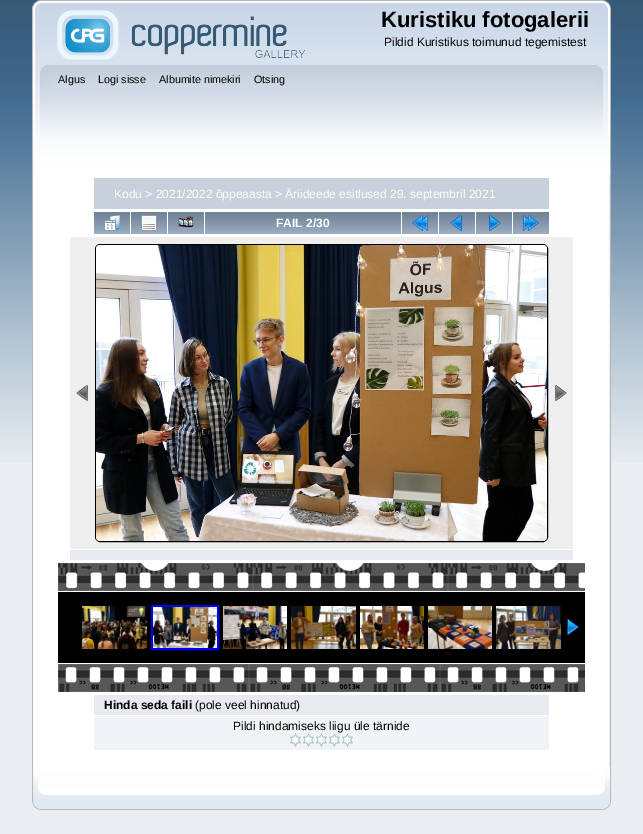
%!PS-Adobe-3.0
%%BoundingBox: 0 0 643 834
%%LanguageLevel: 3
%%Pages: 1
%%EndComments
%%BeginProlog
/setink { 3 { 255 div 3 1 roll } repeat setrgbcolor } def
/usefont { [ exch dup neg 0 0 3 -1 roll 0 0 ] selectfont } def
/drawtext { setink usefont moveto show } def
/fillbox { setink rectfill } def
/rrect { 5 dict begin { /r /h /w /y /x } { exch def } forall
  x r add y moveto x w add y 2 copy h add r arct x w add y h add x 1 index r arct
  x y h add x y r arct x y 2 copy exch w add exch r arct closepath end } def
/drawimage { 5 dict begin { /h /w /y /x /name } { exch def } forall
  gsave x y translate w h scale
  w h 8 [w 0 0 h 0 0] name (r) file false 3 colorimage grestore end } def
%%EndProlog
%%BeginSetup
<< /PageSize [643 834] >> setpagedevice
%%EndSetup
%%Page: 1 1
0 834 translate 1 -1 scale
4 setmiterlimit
0 0 643 834 233 238 242 fillbox
(assets/img1.rgb) 0 0 643 462 drawimage
(assets/img2.rgb) 32 0 571 65 drawimage
(assets/img3.rgb) 603 0 8 65 drawimage
(assets/img4.rgb) 57 10 248 50 drawimage
(Kuristiku fotogalerii) 381 27 /LiberationSans-Bold 22 0 0 0 drawtext
(Pildid Kuristikus toimunud tegemistest) 384 46 /LiberationSans-Regular 12 0 0 0 drawtext
(assets/img5.rgb) 32 65 564 110 drawimage
(assets/img6.rgb) 596 65 15 110 drawimage
(Algus) 58 83 /LiberationSans-Regular 10.75 0 0 0 drawtext
(Logi sisse) 98 83 /LiberationSans-Regular 10.75 0 0 0 drawtext
(Albumite nimekiri) 159 83 /LiberationSans-Regular 10.75 0 0 0 drawtext
(Otsing) 254 83 /LiberationSans-Regular 10.75 0 0 0 drawtext
33 175 576 591 255 255 255 fillbox
32 175 1 591 183 183 183 fillbox
(assets/img7.rgb) 609 175 2 591 drawimage
94 178 455 31 199 208 219 fillbox
(Kodu > 2021/2022 õppeaasta > Äriideede esitlused 29. septembril 2021) 114 198 /LiberationSans-Regular 12 255 255 255 drawtext
(assets/img8.rgb) 94 212 36 22 drawimage
(assets/img9.rgb) 104 215 16 16 drawimage
(assets/img8.rgb) 131 212 36 22 drawimage
(assets/img10.rgb) 141 215 16 16 drawimage
(assets/img8.rgb) 168 212 36 22 drawimage
(assets/img11.rgb) 178 216 16 12 drawimage
(assets/img12.rgb) 205 212 196 22 drawimage
(FAIL 2/30) 276 227 /LiberationSans-Bold 12 255 255 255 drawtext
(assets/img8.rgb) 402 212 36 22 drawimage
(assets/img13.rgb) 412 215 16 16 drawimage
(assets/img8.rgb) 439 212 36 22 drawimage
(assets/img14.rgb) 450 215 12 16 drawimage
(assets/img8.rgb) 476 212 36 22 drawimage
(assets/img15.rgb) 489 215 12 16 drawimage
(assets/img8.rgb) 513 212 36 22 drawimage
(assets/img16.rgb) 523 215 16 16 drawimage
70 237 503 312 239 239 239 fillbox
(assets/img17.rgb) 76 385 12 16 drawimage
0 0 0 setink
95.5 244.5 452 297 4.5 rrect stroke
(assets/img18.rgb) 96 245 451 296 drawimage
(assets/img19.rgb) 555 385 12 16 drawimage
70 550 503 10 231 234 239 fillbox
(assets/img20.rgb) 58 563 527 28 drawimage
58 592 527 71 0 0 0 fillbox
(assets/img21.rgb) 82 606 65 43 drawimage
0 0 255 setink
2 setlinewidth
152 606 66 43 rectstroke
(assets/img22.rgb) 153 607 64 41 drawimage
(assets/img23.rgb) 223 606 64 43 drawimage
(assets/img24.rgb) 291 606 65 43 drawimage
(assets/img25.rgb) 360 606 64 43 drawimage
(assets/img26.rgb) 428 606 64 43 drawimage
(assets/img27.rgb) 496 606 65 43 drawimage
(assets/img28.rgb) 567 619 12 16 drawimage
(assets/img29.rgb) 58 664 527 28 drawimage
94 695 455 20 231 234 239 fillbox
(Hinda seda faili) 104 709 /LiberationSans-Bold 12 0 0 0 drawtext
(\(pole veel hinnatud\)) 195 709 /LiberationSans-Regular 12 0 0 0 drawtext
94 716 455 34 240 244 247 fillbox
(Pildi hindamiseks liigu üle tärnide) 233 730 /LiberationSans-Regular 12 0 0 0 drawtext
(assets/img30.rgb) 289 733 13 14 drawimage
(assets/img30.rgb) 302 733 13 14 drawimage
(assets/img30.rgb) 315 733 13 14 drawimage
(assets/img30.rgb) 328 733 13 14 drawimage
(assets/img30.rgb) 341 733 13 14 drawimage
(assets/img31.rgb) 32 766 566 44 drawimage
(assets/img32.rgb) 598 766 13 44 drawimage
showpage
%%EOF
